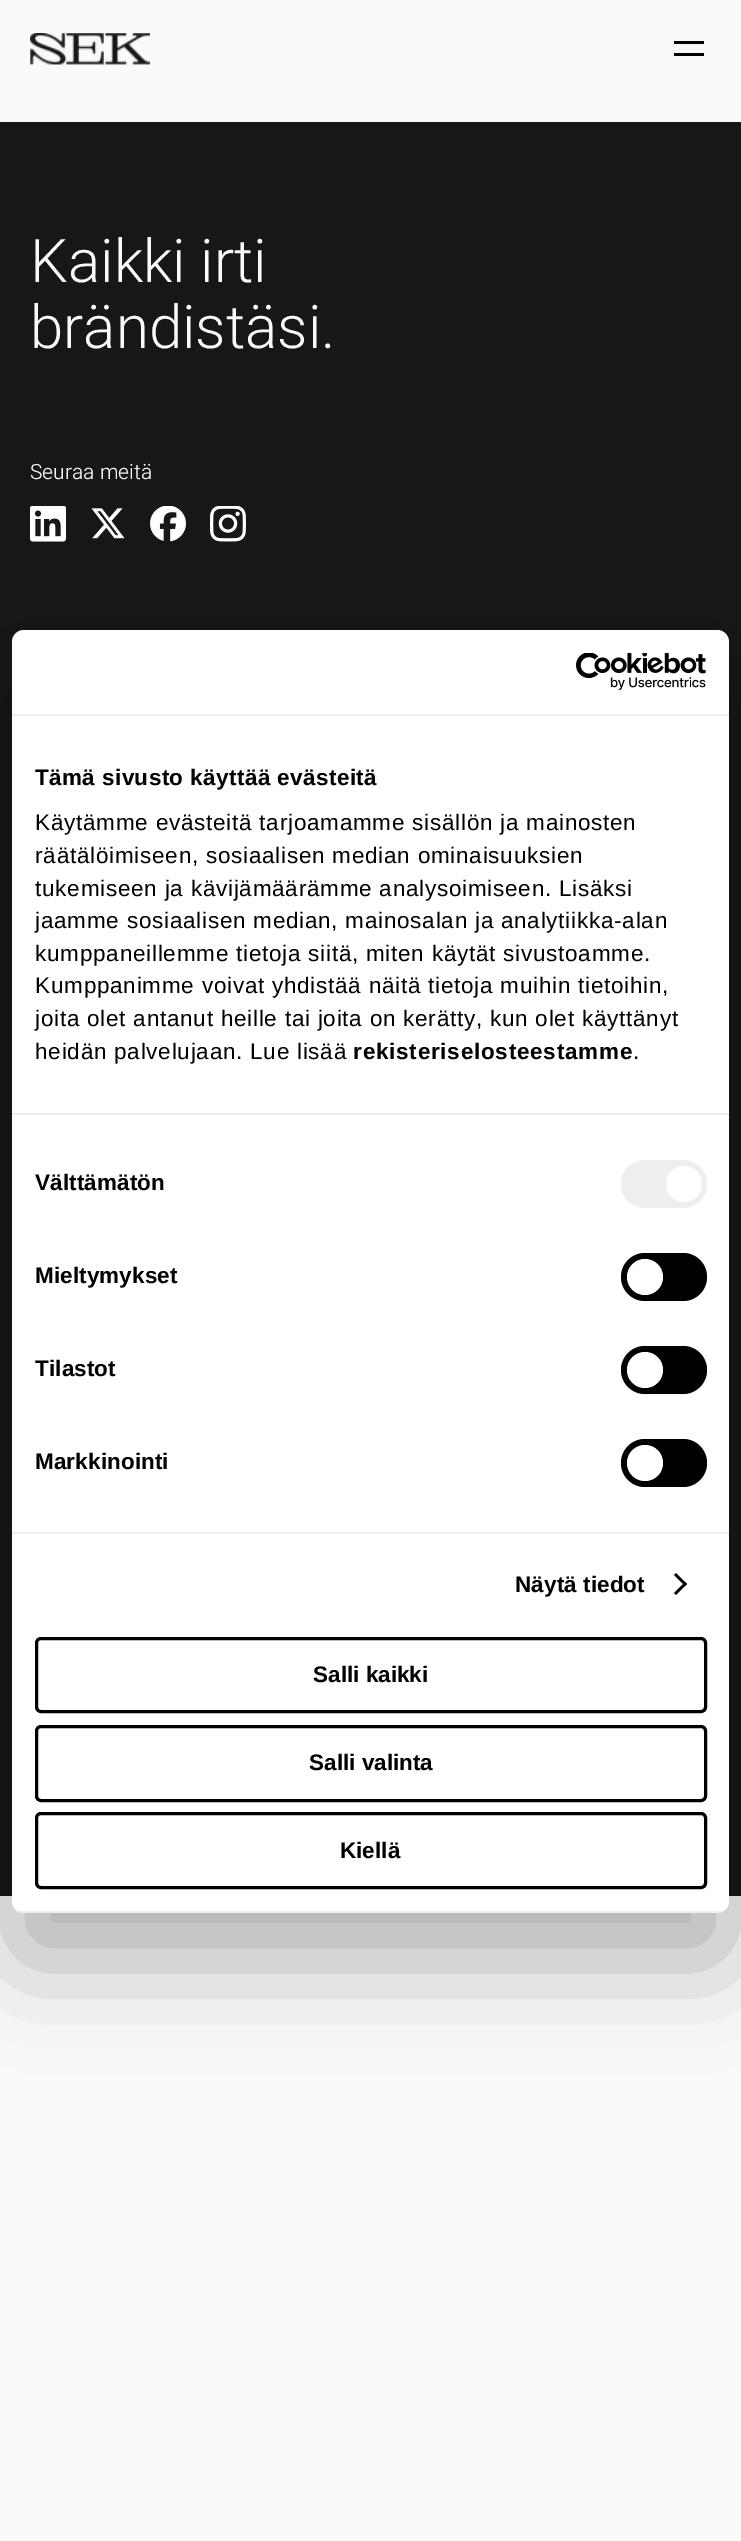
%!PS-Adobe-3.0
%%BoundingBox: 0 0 741 2541
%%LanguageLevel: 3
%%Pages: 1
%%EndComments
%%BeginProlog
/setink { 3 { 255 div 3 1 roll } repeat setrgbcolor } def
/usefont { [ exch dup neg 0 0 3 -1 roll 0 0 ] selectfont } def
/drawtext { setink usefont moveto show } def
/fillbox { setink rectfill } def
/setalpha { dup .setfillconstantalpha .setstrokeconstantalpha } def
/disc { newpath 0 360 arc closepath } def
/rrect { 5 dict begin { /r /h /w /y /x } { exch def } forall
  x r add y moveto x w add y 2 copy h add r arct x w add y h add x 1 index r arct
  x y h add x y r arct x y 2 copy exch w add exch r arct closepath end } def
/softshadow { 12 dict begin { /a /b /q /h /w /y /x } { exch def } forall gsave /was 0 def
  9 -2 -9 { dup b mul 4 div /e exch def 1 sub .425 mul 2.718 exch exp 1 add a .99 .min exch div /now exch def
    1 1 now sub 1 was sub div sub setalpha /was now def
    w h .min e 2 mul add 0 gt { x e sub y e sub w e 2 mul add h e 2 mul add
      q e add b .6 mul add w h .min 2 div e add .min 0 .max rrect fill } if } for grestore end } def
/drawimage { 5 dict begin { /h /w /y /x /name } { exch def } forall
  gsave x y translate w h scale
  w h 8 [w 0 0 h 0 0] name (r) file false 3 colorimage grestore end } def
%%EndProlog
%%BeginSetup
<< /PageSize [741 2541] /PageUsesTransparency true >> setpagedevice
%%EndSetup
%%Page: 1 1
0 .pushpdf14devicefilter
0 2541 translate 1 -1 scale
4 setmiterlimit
0 0 741 2541 251 250 249 fillbox
(assets/img1.rgb) 30 33 120 32 drawimage
674 41 30 3 0 0 0 fillbox
674 53 30 3 0 0 0 fillbox
0 122 741 1774 23 23 22 fillbox
(Kaikki irti) 30 282 /Roboto-Light 60 251 250 249 drawtext
(brändistäsi.) 30 348 /Roboto-Light 60 251 250 249 drawtext
(Seuraa meitä) 30 479 /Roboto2-Light 21 251 250 249 drawtext
(assets/img2.rgb) 30 506 36 36 drawimage
(assets/img3.rgb) 91 508 34 31 drawimage
(assets/img4.rgb) 150 506 36 36 drawimage
(assets/img5.rgb) 210 506 36 36 drawimage
0 0 0 setink
12 678 717 1283 12 51 0.3 softshadow
255 255 255 setink
12 630 717 1283 12 rrect fill
12 714 717 2 238 238 238 fillbox
(assets/img6.rgb) 576 653 130 37 drawimage
12 1113 717 2 238 238 238 fillbox
/LiberationSans-Bold 22.5 usefont
0 0 0 setink
35 785 moveto 0.4 0 (Tämä sivusto käyttää evästeitä) ashow
/LiberationSans-Regular 22.5 usefont
35 830 moveto 0.75 0 (Käytämme evästeitä tarjoamamme sisällön ja mainosten) ashow
35 863 moveto 0.75 0 (räätälöimiseen, sosiaalisen median ominaisuuksien) ashow
35 896 moveto 0.75 0 (tukemiseen ja kävijämäärämme analysoimiseen. Lisäksi) ashow
35 928 moveto 0.75 0 (jaamme sosiaalisen median, mainosalan ja analytiikka-alan) ashow
35 961 moveto 0.75 0 (kumppaneillemme tietoja siitä, miten käytät sivustoamme.) ashow
35 993 moveto 0.75 0 (Kumppanimme voivat yhdistää näitä tietoja muihin tietoihin,) ashow
35 1026 moveto 0.75 0 (joita olet antanut heille tai joita on kerätty, kun olet käyttänyt) ashow
35 1059 moveto 0.75 0 (heidän palvelujaan. Lue lisää) ashow
/LiberationSans-Bold 22.5 usefont
353 1059 moveto 0.75 0 (rekisteriselosteestamme) ashow
/LiberationSans-Regular 22.5 usefont
633 1059 moveto 0.75 0 (.) ashow
12 1532 717 2 238 238 238 fillbox
/LiberationSans-Bold 22.5 usefont
0 0 0 setink
35 1190 moveto 0.1 0 (Välttämätön) ashow
238 238 238 setink
621 1160 86 48 24 rrect fill
255 255 255 setink
684 1184 18 disc fill
0 0 0 setink
35 1283 moveto 0.1 0 (Mieltymykset) ashow
621 1253 86 48 24 rrect fill
255 255 255 setink
645 1277 18 disc fill
0 0 0 setink
35 1376 moveto 0.1 0 (Tilastot) ashow
621 1346 86 48 24 rrect fill
255 255 255 setink
645 1370 18 disc fill
0 0 0 setink
35 1469 moveto 0.1 0 (Markkinointi) ashow
621 1439 86 48 24 rrect fill
255 255 255 setink
645 1463 18 disc fill
0 0 0 setink
515 1592 moveto 0.1 0 (Näytä tiedot) ashow
676 1573 moveto 687 1584 lineto 685 1586 lineto 674 1575 lineto closepath fill
685 1582 moveto 687 1584 lineto 676 1595 lineto 674 1593 lineto closepath fill
gsave
12 630 717 1283 12 rrect clip newpath
12 1911 717 2 238 238 238 fillbox
grestore
3 setlinewidth
36.5 1638.5 669 73 4.5 rrect stroke
(Salli kaikki) 313 1682 /LiberationSans-Bold 22.5 0 0 0 drawtext
36.5 1726.5 669 74 4.5 rrect stroke
(Salli valinta) 309 1770 /LiberationSans-Bold 22.5 0 0 0 drawtext
36.5 1813.5 669 74 4.5 rrect stroke
(Kiellä) 340 1858 /LiberationSans-Bold 22.5 0 0 0 drawtext
.poppdf14devicefilter showpage
%%EOF
